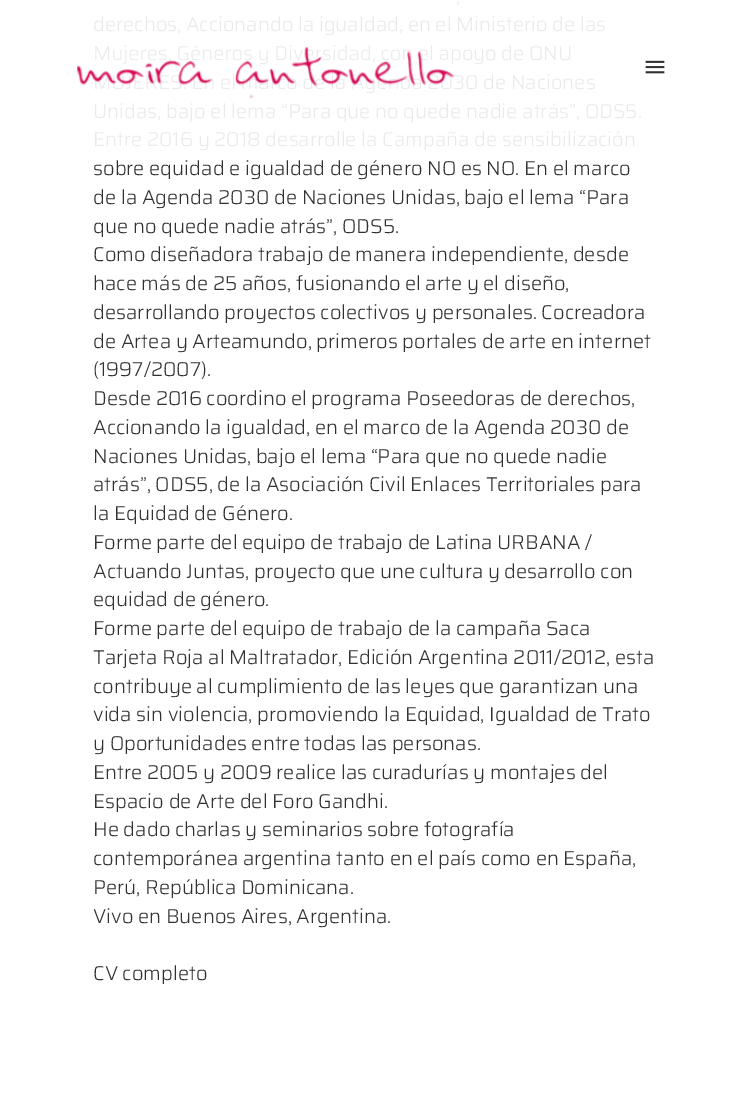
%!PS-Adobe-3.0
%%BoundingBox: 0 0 748 1095
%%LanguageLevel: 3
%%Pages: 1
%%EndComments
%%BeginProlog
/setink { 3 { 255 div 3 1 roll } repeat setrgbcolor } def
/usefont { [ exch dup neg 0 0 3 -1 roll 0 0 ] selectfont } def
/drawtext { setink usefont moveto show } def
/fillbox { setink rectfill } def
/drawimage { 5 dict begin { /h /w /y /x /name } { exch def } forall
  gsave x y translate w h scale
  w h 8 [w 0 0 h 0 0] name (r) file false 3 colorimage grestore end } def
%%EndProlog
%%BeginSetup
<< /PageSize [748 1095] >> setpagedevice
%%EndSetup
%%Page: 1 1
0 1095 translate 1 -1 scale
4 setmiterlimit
0 0 748 1095 255 255 255 fillbox
(,) 456 3 /Saira-Light 20 235 234 234 drawtext
(derechos, Accionando la igualdad, en el Ministerio de las) 93 31 /Saira-Light 20 235 234 234 drawtext
(Mujeres, Géneros y Diversidad, con el apoyo de ONU) 93 60 /Saira-Light 20 235 234 234 drawtext
(MUJERES. En el marco de la Agenda 2030 de Naciones) 93 89 /Saira-Light 20 235 234 234 drawtext
(Unidas, bajo el lema “Para que no quede nadie atrás”, ODS5.) 93 118 /Saira-Light 20 235 234 234 drawtext
(Entre 2016 y 2018 desarrolle la Campaña de sensibilización) 93 146 /Saira-Light 20 235 234 234 drawtext
(sobre equidad e igualdad de género NO es NO. En el marco) 93 175 /Saira-Light 20 50 49 49 drawtext
(de la Agenda 2030 de Naciones Unidas, bajo el lema “Para) 93 204 /Saira-Light 20 50 49 49 drawtext
(que no quede nadie atrás”, ODS5.) 93 233 /Saira-Light 20 50 49 49 drawtext
(Como diseñadora trabajo de manera independiente, desde) 93 261 /Saira-Light 20 50 49 49 drawtext
(hace más de 25 años, fusionando el arte y el diseño,) 93 290 /Saira-Light 20 50 49 49 drawtext
(desarrollando proyectos colectivos y personales. Cocreadora) 93 319 /Saira-Light 20 50 49 49 drawtext
(de Artea y Arteamundo, primeros portales de arte en internet) 93 348 /Saira-Light 20 50 49 49 drawtext
(\(1997/2007\).) 93 376 /Saira-Light 20 50 49 49 drawtext
(Desde 2016 coordino el programa Poseedoras de derechos,) 93 405 /Saira-Light 20 50 49 49 drawtext
(Accionando la igualdad, en el marco de la Agenda 2030 de) 93 434 /Saira-Light 20 50 49 49 drawtext
(Naciones Unidas, bajo el lema “Para que no quede nadie) 93 463 /Saira-Light 20 50 49 49 drawtext
(atrás”, ODS5, de la Asociación Civil Enlaces Territoriales para) 93 491 /Saira-Light 20 50 49 49 drawtext
(la Equidad de Género.) 93 520 /Saira-Light 20 50 49 49 drawtext
(Forme parte del equipo de trabajo de Latina URBANA /) 93 549 /Saira-Light 20 50 49 49 drawtext
(Actuando Juntas, proyecto que une cultura y desarrollo con) 93 578 /Saira-Light 20 50 49 49 drawtext
(equidad de género.) 93 606 /Saira-Light 20 50 49 49 drawtext
(Forme parte del equipo de trabajo de la campaña Saca) 93 635 /Saira-Light 20 50 49 49 drawtext
(Tarjeta Roja al Maltratador, Edición Argentina 2011/2012, esta) 93 664 /Saira-Light 20 50 49 49 drawtext
(contribuye al cumplimiento de las leyes que garantizan una) 93 693 /Saira-Light 20 50 49 49 drawtext
(vida sin violencia, promoviendo la Equidad, Igualdad de Trato) 93 721 /Saira-Light 20 50 49 49 drawtext
(y Oportunidades entre todas las personas.) 93 750 /Saira-Light 20 50 49 49 drawtext
(Entre 2005 y 2009 realice las curadurías y montajes del) 93 779 /Saira-Light 20 50 49 49 drawtext
(Espacio de Arte del Foro Gandhi.) 93 808 /Saira-Light 20 50 49 49 drawtext
(He dado charlas y seminarios sobre fotografía) 93 836 /Saira-Light 20 50 49 49 drawtext
(contemporánea argentina tanto en el país como en España,) 93 865 /Saira-Light 20 50 49 49 drawtext
(Perú, República Dominicana.) 93 894 /Saira-Light 20 50 49 49 drawtext
(Vivo en Buenos Aires, Argentina.) 93 923 /Saira-Light 20 50 49 49 drawtext
(CV completo) 93 980 /Saira-Light 20 50 49 49 drawtext
(assets/img1.rgb) 77 47 378 52 drawimage
(assets/img2.rgb) 645 60 20 14 drawimage
showpage
%%EOF
